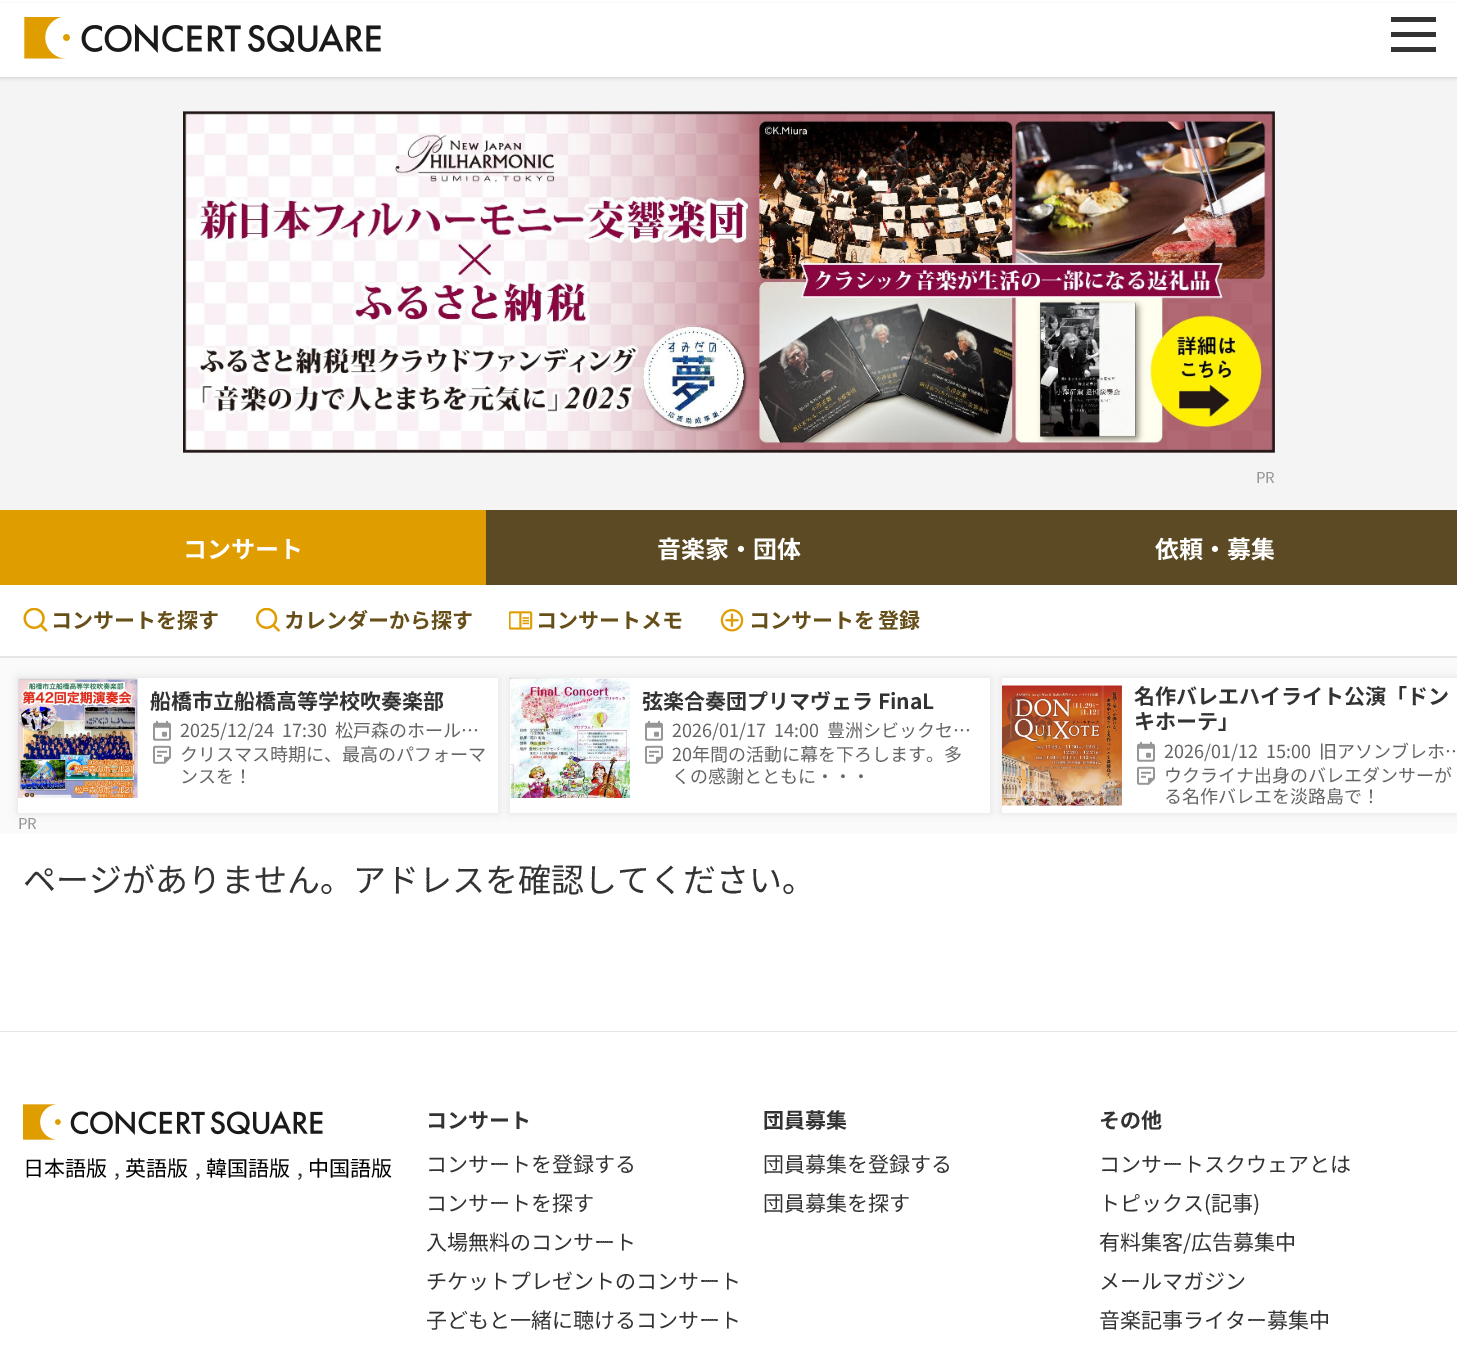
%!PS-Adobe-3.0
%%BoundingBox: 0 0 1457 1356
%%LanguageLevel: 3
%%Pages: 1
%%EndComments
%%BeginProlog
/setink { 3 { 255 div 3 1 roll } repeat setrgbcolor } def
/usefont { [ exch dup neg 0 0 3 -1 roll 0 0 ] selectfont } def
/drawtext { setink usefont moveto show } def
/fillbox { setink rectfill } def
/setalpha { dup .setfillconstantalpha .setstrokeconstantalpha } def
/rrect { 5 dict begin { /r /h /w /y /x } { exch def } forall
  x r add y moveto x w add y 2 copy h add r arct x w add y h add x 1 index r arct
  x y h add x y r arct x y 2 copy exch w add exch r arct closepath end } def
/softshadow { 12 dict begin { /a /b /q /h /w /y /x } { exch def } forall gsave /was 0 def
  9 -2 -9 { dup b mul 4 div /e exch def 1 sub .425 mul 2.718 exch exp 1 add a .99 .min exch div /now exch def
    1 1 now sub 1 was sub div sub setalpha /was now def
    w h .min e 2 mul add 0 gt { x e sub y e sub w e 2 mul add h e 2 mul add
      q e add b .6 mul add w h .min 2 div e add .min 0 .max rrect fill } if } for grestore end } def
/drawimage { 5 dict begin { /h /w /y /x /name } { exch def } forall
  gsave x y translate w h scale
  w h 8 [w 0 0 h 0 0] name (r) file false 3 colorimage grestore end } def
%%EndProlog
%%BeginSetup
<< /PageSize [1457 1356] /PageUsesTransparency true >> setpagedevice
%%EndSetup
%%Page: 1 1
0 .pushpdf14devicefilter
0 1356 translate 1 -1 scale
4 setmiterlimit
0 0 1457 1356 255 255 255 fillbox
0 77 1457 433 244 244 244 fillbox
gsave
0 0 moveto 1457 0 lineto 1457 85 lineto 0 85 lineto closepath 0 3 moveto 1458 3 lineto 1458 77 lineto 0 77 lineto closepath eoclip newpath
0 0 0 setink
0 5 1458 73 0 2 0.15 softshadow
grestore
(assets/img1.rgb) 24 17 357 42 drawimage
1391 17 45 5 51 51 51 fillbox
1391 32 45 5 51 51 51 fillbox
1391 47 45 5 51 51 51 fillbox
(assets/img2.rgb) 183 111 1092 342 drawimage
(PR) 1256 483 /NotoSansJP-Regular 15 150 150 150 drawtext
486 510 971 75 91 74 35 fillbox
0 510 486 75 224 157 0 fillbox
(コンサート) 183 558 /NotoSansJP-Bold 24 255 255 255 drawtext
(音楽家・団体) 657 558 /NotoSansJP-Bold 24 255 255 255 drawtext
(依頼・募集) 1155 558 /NotoSansJP-Bold 24 255 255 255 drawtext
0 656 1457 2 230 230 230 fillbox
(assets/img3.rgb) 23 608 25 24 drawimage
(コンサートを探す) 51 628 /NotoSansJP-Bold 21 101 78 24 drawtext
(assets/img4.rgb) 256 608 24 24 drawimage
(カレンダーから探す) 284 628 /NotoSansJP-Bold 21 101 78 24 drawtext
(assets/img5.rgb) 509 611 24 19 drawimage
(コンサートメモ) 536 628 /NotoSansJP-Bold 21 101 78 24 drawtext
(assets/img6.rgb) 720 609 24 23 drawimage
(コンサートを) 749 628 /NotoSansJP-Bold 21 101 78 24 drawtext
(登録) 878 628 /NotoSansJP-Bold 21 101 78 24 drawtext
0 658 1457 176 250 250 250 fillbox
0 0 0 setink
18 678 480 135 0 4.5 0.1 softshadow
18 678 480 135 255 255 255 fillbox
(assets/img7.rgb) 18 678 120 120 drawimage
(船橋市立船橋高等学校吹奏楽部) 150 709 /NotoSansJP-Bold 21 51 51 51 drawtext
(assets/img8.rgb) 153 720 18 21 drawimage
(2025/12/24) 180 737 /NotoSansJP-Regular 18 100 100 100 drawtext
(17:30) 282 737 /NotoSansJP-Regular 18 100 100 100 drawtext
(松戸森のホール…) 335 737 /NotoSansJP-Regular 18 100 100 100 drawtext
(assets/img9.rgb) 153 745 18 19 drawimage
(クリスマス時期に、最高のパフォーマ) 180 761 /NotoSansJP-Regular 18 100 100 100 drawtext
(ンスを！) 180 783 /NotoSansJP-Regular 18 100 100 100 drawtext
0 0 0 setink
510 678 480 135 0 4.5 0.1 softshadow
510 678 480 135 255 255 255 fillbox
(assets/img10.rgb) 510 678 120 120 drawimage
(弦楽合奏団プリマヴェラ FinaL) 642 709 /NotoSansJP-Bold 21 51 51 51 drawtext
(assets/img8.rgb) 645 720 18 21 drawimage
(2026/01/17) 672 737 /NotoSansJP-Regular 18 100 100 100 drawtext
(14:00) 774 737 /NotoSansJP-Regular 18 100 100 100 drawtext
(豊洲シビックセ…) 827 737 /NotoSansJP-Regular 18 100 100 100 drawtext
(assets/img9.rgb) 645 745 18 19 drawimage
(20年間の活動に幕を下ろします。多) 672 761 /NotoSansJP-Regular 18 100 100 100 drawtext
(くの感謝とともに・・・) 672 783 /NotoSansJP-Regular 18 100 100 100 drawtext
0 0 0 setink
1002 678 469 135 0 4.5 0.1 softshadow
1002 678 455 135 255 255 255 fillbox
(assets/img11.rgb) 1002 685 120 121 drawimage
(名作バレエハイライト公演「ドン) 1134 704 /NotoSansJP-Bold 21 51 51 51 drawtext
(キホーテ」) 1134 729 /NotoSansJP-Bold 21 51 51 51 drawtext
(assets/img8.rgb) 1137 741 18 21 drawimage
(2026/01/12) 1164 758 /NotoSansJP-Regular 18 100 100 100 drawtext
(15:00) 1266 758 /NotoSansJP-Regular 18 100 100 100 drawtext
(旧アソンブレホ…) 1319 758 /NotoSansJP-Regular 18 100 100 100 drawtext
(assets/img9.rgb) 1137 766 18 19 drawimage
(ウクライナ出身のバレエダンサーが) 1164 782 /NotoSansJP-Regular 18 100 100 100 drawtext
(る名作バレエを淡路島で！) 1164 803 /NotoSansJP-Regular 18 100 100 100 drawtext
(PR) 18 829 /NotoSansJP-Regular 15 150 150 150 drawtext
(ページがありません。アドレスを確認してください。) 23 892 /NotoSansJP-Regular 33 51 51 51 drawtext
0 1031 1457 1 230 230 230 fillbox
(assets/img12.rgb) 23 1104 300 36 drawimage
(日本語版) 23 1176 /NotoSansJP-Regular 21 0 0 0 drawtext
(,) 114 1176 /NotoSansJP-Regular 21 51 51 51 drawtext
(英語版) 125 1176 /NotoSansJP-Regular 21 0 0 0 drawtext
(,) 195 1176 /NotoSansJP-Regular 21 51 51 51 drawtext
(韓国語版) 206 1176 /NotoSansJP-Regular 21 0 0 0 drawtext
(,) 297 1176 /NotoSansJP-Regular 21 51 51 51 drawtext
(中国語版) 308 1176 /NotoSansJP-Regular 21 0 0 0 drawtext
(コンサート) 426 1128 /NotoSansJP-Bold 21 51 51 51 drawtext
(コンサートを登録する) 426 1172 /NotoSansJP-Regular 21 51 51 51 drawtext
(コンサートを探す) 426 1211 /NotoSansJP-Regular 21 51 51 51 drawtext
(入場無料のコンサート) 426 1250 /NotoSansJP-Regular 21 51 51 51 drawtext
(チケットプレゼントのコンサート) 426 1289 /NotoSansJP-Regular 21 51 51 51 drawtext
(子どもと一緒に聴けるコンサート) 426 1328 /NotoSansJP-Regular 21 51 51 51 drawtext
(団員募集) 763 1128 /NotoSansJP-Bold 21 51 51 51 drawtext
(団員募集を登録する) 763 1172 /NotoSansJP-Regular 21 51 51 51 drawtext
(団員募集を探す) 763 1211 /NotoSansJP-Regular 21 51 51 51 drawtext
(その他) 1099 1128 /NotoSansJP-Bold 21 51 51 51 drawtext
(コンサートスクウェアとは) 1099 1172 /NotoSansJP-Regular 21 51 51 51 drawtext
(トピックス\(記事\)) 1099 1211 /NotoSansJP-Regular 21 51 51 51 drawtext
(有料集客/広告募集中) 1099 1250 /NotoSansJP-Regular 21 51 51 51 drawtext
(メールマガジン) 1099 1289 /NotoSansJP-Regular 21 51 51 51 drawtext
(音楽記事ライター募集中) 1099 1328 /NotoSansJP-Regular 21 51 51 51 drawtext
.poppdf14devicefilter showpage
%%EOF
